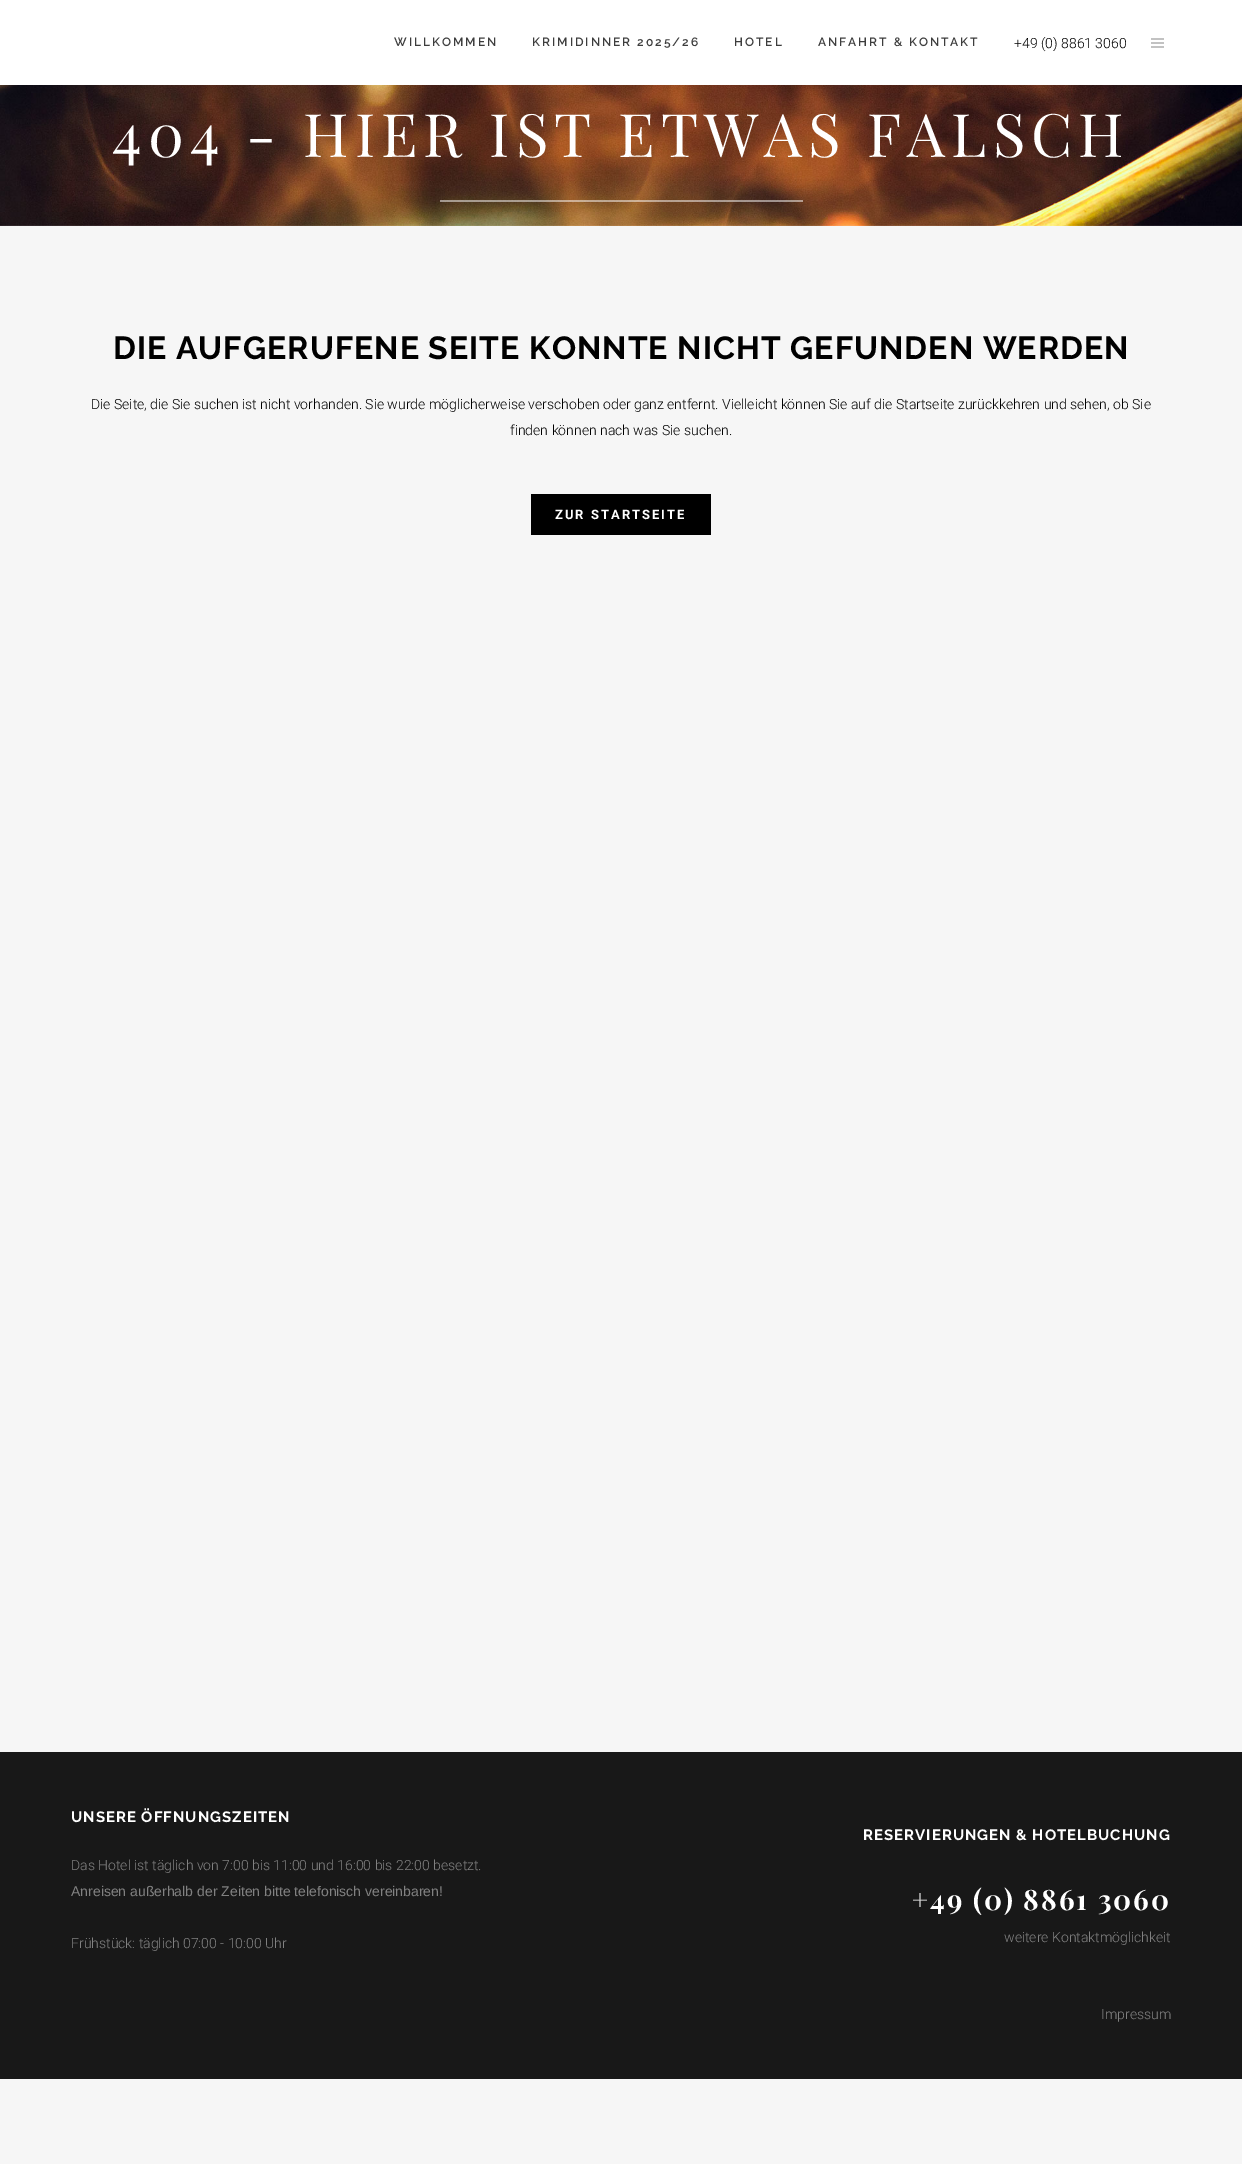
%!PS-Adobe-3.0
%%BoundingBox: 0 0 1242 2164
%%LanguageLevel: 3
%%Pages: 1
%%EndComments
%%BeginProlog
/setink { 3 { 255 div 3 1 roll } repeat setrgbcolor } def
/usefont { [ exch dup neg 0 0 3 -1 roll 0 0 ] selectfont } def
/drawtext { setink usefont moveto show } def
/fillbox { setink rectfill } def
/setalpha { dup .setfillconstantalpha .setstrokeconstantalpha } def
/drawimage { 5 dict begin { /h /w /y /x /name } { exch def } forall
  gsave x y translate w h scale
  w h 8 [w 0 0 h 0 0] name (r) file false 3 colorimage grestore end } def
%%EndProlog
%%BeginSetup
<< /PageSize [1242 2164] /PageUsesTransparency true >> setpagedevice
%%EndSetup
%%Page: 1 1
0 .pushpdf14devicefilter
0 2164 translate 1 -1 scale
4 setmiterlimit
0 0 1242 2164 246 246 246 fillbox
0 0 1242 85 255 255 255 fillbox
/Raleway-SemiBold 12 usefont
61 61 61 setink
394 46 moveto 2 0 (WILLKOMMEN) ashow
532 46 moveto 2 0 (KRIMIDINNER 2025/26) ashow
734 46 moveto 2 0 (HOTEL) ashow
818 46 moveto 2 0 (ANFAHRT & KONTAKT) ashow
(+49 \(0\) 8861 3060) 1014 48 /Roboto-Light 14 0 0 0 drawtext
1151 42 13 2 194 194 194 fillbox
1151 38 13 2 194 194 194 fillbox
1151 46 13 2 194 194 194 fillbox
(assets/img1.rgb) 0 85 1242 141 drawimage
/PlayfairDisplay-Regular 60 usefont
255 255 255 setink
112 157 moveto 6 0 (404 - HIER IST ETWAS FALSCH) ashow
0.5 setalpha
440 200 363 2 255 255 255 fillbox
/Raleway-Bold 32 usefont
1 setalpha
0 0 0 setink
113 359 moveto 1 0 (DIE AUFGERUFENE SEITE KONNTE NICHT GEFUNDEN WERDEN) ashow
(Die Seite, die Sie suchen ist nicht vorhanden. Sie wurde möglicherweise verschoben oder ganz entfernt. Vielleicht können Sie auf die Startseite zurückkehren und sehen, ob Sie) 91 409 /Roboto-Light 14 0 0 0 drawtext
(finden können nach was Sie suchen.) 510 435 /Roboto-Light 14 0 0 0 drawtext
531 494 180 41 0 0 0 fillbox
/Roboto-Bold 13 usefont
255 255 255 setink
555 519 moveto 2 0 (ZUR STARTSEITE) ashow
0 1752 1242 327 24 24 24 fillbox
/Raleway-Bold 15 usefont
255 255 255 setink
71 1822 moveto 1 0 (UNSERE ÖFFNUNGSZEITEN) ashow
(Das Hotel ist täglich von 7:00 bis 11:00 und 16:00 bis 22:00 besetzt.) 71 1870 /Roboto-Light 14 129 129 129 drawtext
(Anreisen außerhalb der Zeiten bitte telefonisch vereinbaren!) 71 1896 /LiberationSans-Regular 14 129 129 129 drawtext
(Frühstück: täglich 07:00 - 10:00 Uhr) 71 1948 /Roboto-Light 14 129 129 129 drawtext
/Raleway-Bold 15 usefont
255 255 255 setink
863 1840 moveto 1 0 (RESERVIERUNGEN & HOTELBUCHUNG) ashow
/PlayfairDisplay-Bold 28 usefont
912 1910 moveto 2 0 (+49 \(0\) 8861 3060) ashow
(weitere Kontaktmöglichkeit) 1004 1942 /Roboto-Light 14 129 129 129 drawtext
(Impressum) 1101 2019 /Roboto-Light 14 129 129 129 drawtext
.poppdf14devicefilter showpage
%%EOF
